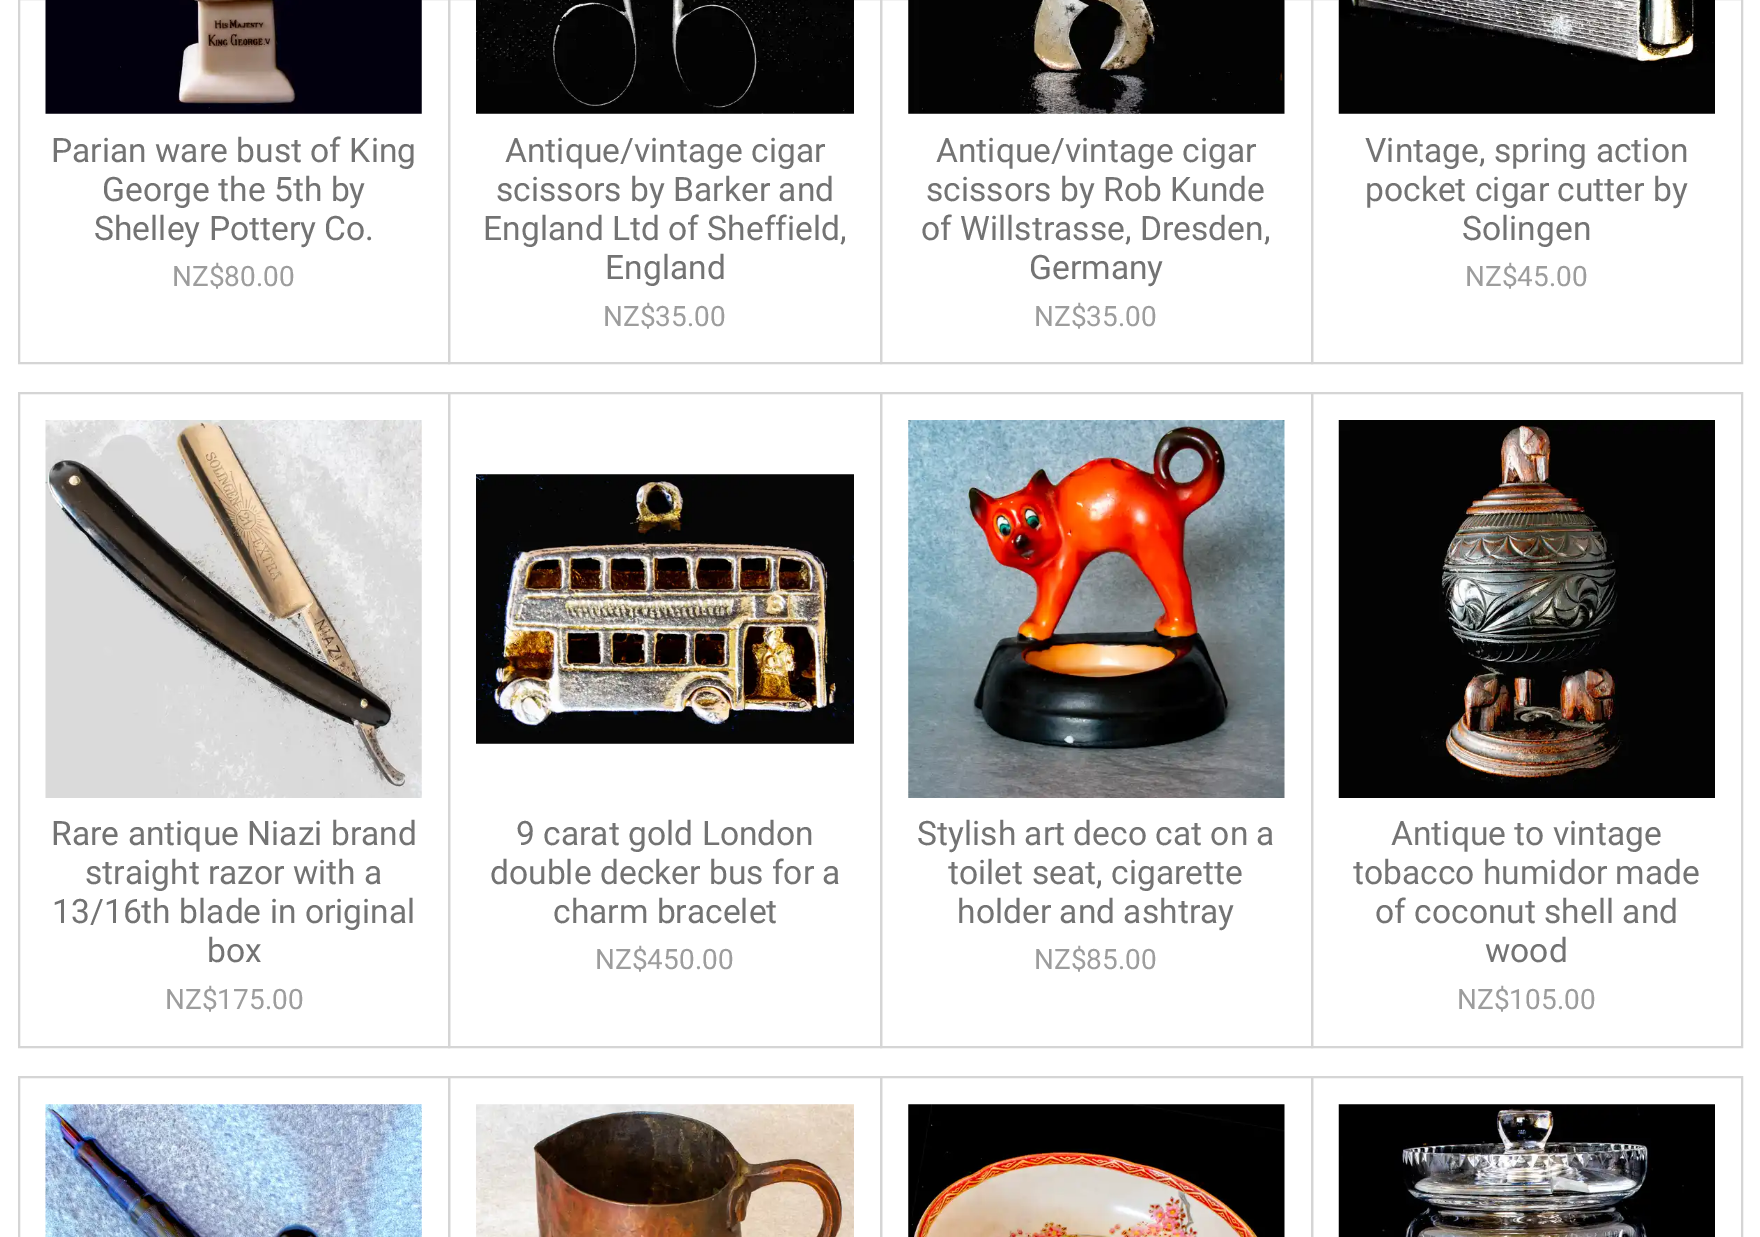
%!PS-Adobe-3.0
%%BoundingBox: 0 0 1760 1237
%%LanguageLevel: 3
%%Pages: 1
%%EndComments
%%BeginProlog
/setink { 3 { 255 div 3 1 roll } repeat setrgbcolor } def
/usefont { [ exch dup neg 0 0 3 -1 roll 0 0 ] selectfont } def
/drawtext { setink usefont moveto show } def
/fillbox { setink rectfill } def
/drawimage { 5 dict begin { /h /w /y /x /name } { exch def } forall
  gsave x y translate w h scale
  w h 8 [w 0 0 h 0 0] name (r) file false 3 colorimage grestore end } def
%%EndProlog
%%BeginSetup
<< /PageSize [1760 1237] >> setpagedevice
%%EndSetup
%%Page: 1 1
0 1237 translate 1 -1 scale
4 setmiterlimit
0 0 1760 1237 255 255 255 fillbox
213 213 213 setink
2 setlinewidth
19 -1 430 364 rectstroke
(assets/img1.rgb) 45 0 377 114 drawimage
(Parian ware bust of King) 51 162 /Roboto-Regular 33.6 115 115 115 drawtext
(George the 5th by) 102 201 /Roboto-Regular 33.6 115 115 115 drawtext
(Shelley Pottery Co.) 94 240 /Roboto-Regular 33.6 115 115 115 drawtext
(NZ$80.00) 172 286 /Roboto-Regular 28 157 157 157 drawtext
213 213 213 setink
449 -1 432 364 rectstroke
(assets/img2.rgb) 476 0 378 114 drawimage
(Antique/vintage cigar) 505 162 /Roboto-Regular 33.6 115 115 115 drawtext
(scissors by Barker and) 496 201 /Roboto-Regular 33.6 115 115 115 drawtext
(England Ltd of Sheffield,) 483 240 /Roboto-Regular 33.6 115 115 115 drawtext
(England) 605 279 /Roboto-Regular 33.6 115 115 115 drawtext
(NZ$35.00) 603 326 /Roboto-Regular 28 157 157 157 drawtext
213 213 213 setink
881 -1 431 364 rectstroke
(assets/img3.rgb) 908 0 377 114 drawimage
(Antique/vintage cigar) 936 162 /Roboto-Regular 33.6 115 115 115 drawtext
(scissors by Rob Kunde) 926 201 /Roboto-Regular 33.6 115 115 115 drawtext
(of Willstrasse, Dresden,) 921 240 /Roboto-Regular 33.6 115 115 115 drawtext
(Germany) 1029 279 /Roboto-Regular 33.6 115 115 115 drawtext
(NZ$35.00) 1034 326 /Roboto-Regular 28 157 157 157 drawtext
213 213 213 setink
1312 -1 430 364 rectstroke
(assets/img4.rgb) 1338 0 377 114 drawimage
(Vintage, spring action) 1365 162 /Roboto-Regular 33.6 115 115 115 drawtext
(pocket cigar cutter by) 1365 201 /Roboto-Regular 33.6 115 115 115 drawtext
(Solingen) 1462 240 /Roboto-Regular 33.6 115 115 115 drawtext
(NZ$45.00) 1465 286 /Roboto-Regular 28 157 157 157 drawtext
213 213 213 setink
19 393 430 654 rectstroke
(assets/img5.rgb) 45 420 377 378 drawimage
(Rare antique Niazi brand) 51 845 /Roboto-Regular 33.6 115 115 115 drawtext
(straight razor with a) 85 884 /Roboto-Regular 33.6 115 115 115 drawtext
(13/16th blade in original) 52 923 /Roboto-Regular 33.6 115 115 115 drawtext
(box) 207 962 /Roboto-Regular 33.6 115 115 115 drawtext
(NZ$175.00) 165 1009 /Roboto-Regular 28 157 157 157 drawtext
213 213 213 setink
449 393 432 654 rectstroke
(assets/img6.rgb) 476 474 378 270 drawimage
(9 carat gold London) 516 845 /Roboto-Regular 33.6 115 115 115 drawtext
(double decker bus for a) 490 884 /Roboto-Regular 33.6 115 115 115 drawtext
(charm bracelet) 553 923 /Roboto-Regular 33.6 115 115 115 drawtext
(NZ$450.00) 595 969 /Roboto-Regular 28 157 157 157 drawtext
213 213 213 setink
881 393 431 654 rectstroke
(assets/img7.rgb) 908 420 377 378 drawimage
(Stylish art deco cat on a) 917 845 /Roboto-Regular 33.6 115 115 115 drawtext
(toilet seat, cigarette) 948 884 /Roboto-Regular 33.6 115 115 115 drawtext
(holder and ashtray) 957 923 /Roboto-Regular 33.6 115 115 115 drawtext
(NZ$85.00) 1034 969 /Roboto-Regular 28 157 157 157 drawtext
213 213 213 setink
1312 393 430 654 rectstroke
(assets/img8.rgb) 1338 420 377 378 drawimage
(Antique to vintage) 1391 845 /Roboto-Regular 33.6 115 115 115 drawtext
(tobacco humidor made) 1353 884 /Roboto-Regular 33.6 115 115 115 drawtext
(of coconut shell and) 1375 923 /Roboto-Regular 33.6 115 115 115 drawtext
(wood) 1485 962 /Roboto-Regular 33.6 115 115 115 drawtext
(NZ$105.00) 1457 1009 /Roboto-Regular 28 157 157 157 drawtext
213 213 213 setink
19 1077 430 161 rectstroke
(assets/img9.rgb) 45 1104 377 133 drawimage
449 1077 432 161 rectstroke
(assets/img10.rgb) 476 1104 378 133 drawimage
881 1077 431 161 rectstroke
(assets/img11.rgb) 908 1104 377 133 drawimage
1312 1077 430 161 rectstroke
(assets/img12.rgb) 1338 1104 377 133 drawimage
showpage
%%EOF
